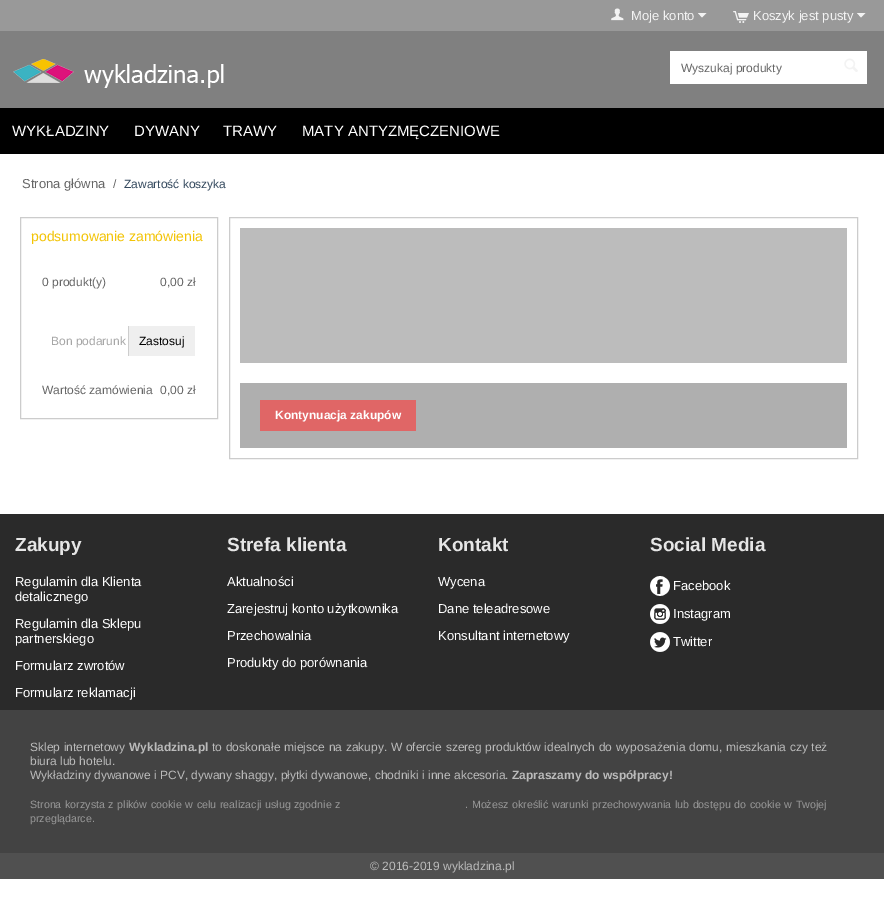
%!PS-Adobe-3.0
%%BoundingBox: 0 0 884 914
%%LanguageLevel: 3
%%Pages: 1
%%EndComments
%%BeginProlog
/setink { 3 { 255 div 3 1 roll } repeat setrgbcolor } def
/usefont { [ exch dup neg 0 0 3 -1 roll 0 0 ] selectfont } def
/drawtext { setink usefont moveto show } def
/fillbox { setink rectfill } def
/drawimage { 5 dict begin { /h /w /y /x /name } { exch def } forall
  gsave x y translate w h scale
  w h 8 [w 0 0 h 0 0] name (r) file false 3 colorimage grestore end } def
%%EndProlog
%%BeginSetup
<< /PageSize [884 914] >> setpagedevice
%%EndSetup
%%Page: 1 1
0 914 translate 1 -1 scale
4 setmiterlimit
0 0 884 914 255 255 255 fillbox
0 0 884 31 153 153 153 fillbox
(assets/img1.rgb) 611 8 13 13 drawimage
(Moje konto) 631 20 /LiberationSans-Regular 13 243 243 243 drawtext
702 17.5 moveto 698 13 lineto 706.5 13 lineto closepath fill
(assets/img2.rgb) 733 11 16 12 drawimage
(Koszyk jest pusty) 753 20 /LiberationSans-Regular 13 243 243 243 drawtext
861 17.5 moveto 857 13 lineto 865.5 13 lineto closepath fill
0 31 884 77 128 128 128 fillbox
(assets/img3.rgb) 13 59 211 29 drawimage
670 51 197 33 255 255 255 fillbox
(Wyszukaj produkty) 681 72 /LiberationSans-Regular 12 102 102 102 drawtext
(assets/img4.rgb) 844 58 14 14 drawimage
0 108 884 46 0 0 0 fillbox
(WYKŁADZINY) 12 136 /LiberationSans-Regular 15 255 255 255 drawtext
(DYWANY) 134 136 /LiberationSans-Regular 15 255 255 255 drawtext
(TRAWY) 223 136 /LiberationSans-Regular 15 255 255 255 drawtext
(MATY ANTYZMĘCZENIOWE) 302 136 /LiberationSans-Regular 15 255 255 255 drawtext
(Strona główna) 22 188 /LiberationSans-Regular 13 102 102 102 drawtext
(/) 113 188 /LiberationSans-Regular 12 102 102 102 drawtext
(Zawartość koszyka) 124 188 /LiberationSans-Regular 12 52 73 94 drawtext
204 204 204 setink
20.5 217.5 197 201 rectstroke
(podsumowanie zamówienia) 31 241 /LiberationSans-Regular 14 243 196 6 drawtext
(0 produkt\(y\)) 42 286 /LiberationSans-Regular 12 102 102 102 drawtext
(0,00 zł) 160 286 /LiberationSans-Regular 12 102 102 102 drawtext
(Bon podarunk) 51 345 /LiberationSans-Regular 12 166 166 166 drawtext
129 326 66 30 239 239 239 fillbox
128 326 1 30 205 205 205 fillbox
(Zastosuj) 139 345 /LiberationSans-Regular 12 0 0 0 drawtext
(Wartość zamówienia) 42 394 /LiberationSans-Regular 12 102 102 102 drawtext
(0,00 zł) 160 394 /LiberationSans-Regular 12 102 102 102 drawtext
204 204 204 setink
229.5 217.5 628 241 rectstroke
240 228 607 135 188 188 188 fillbox
240 383 607 65 175 175 175 fillbox
260 400 156 31 224 102 102 fillbox
(Kontynuacja zakupów) 275 419 /LiberationSans-Bold 12 255 255 255 drawtext
0 710 884 143 67 67 67 fillbox
0 514 884 196 42 42 42 fillbox
(Zakupy) 15 551 /LiberationSans-Bold 19 230 230 230 drawtext
(Regulamin dla Klienta) 15 586 /LiberationSans-Regular 13 255 255 255 drawtext
(detalicznego) 15 601 /LiberationSans-Regular 13 255 255 255 drawtext
(Regulamin dla Sklepu) 15 628 /LiberationSans-Regular 13 255 255 255 drawtext
(partnerskiego) 15 643 /LiberationSans-Regular 13 255 255 255 drawtext
(Formularz zwrotów) 15 670 /LiberationSans-Regular 13 255 255 255 drawtext
(Formularz reklamacji) 15 697 /LiberationSans-Regular 13 255 255 255 drawtext
(Strefa klienta) 227 551 /LiberationSans-Bold 19 230 230 230 drawtext
(Aktualności) 227 586 /LiberationSans-Regular 13 255 255 255 drawtext
(Zarejestruj konto użytkownika) 227 613 /LiberationSans-Regular 13 255 255 255 drawtext
(Przechowalnia) 227 640 /LiberationSans-Regular 13 255 255 255 drawtext
(Produkty do porównania) 227 667 /LiberationSans-Regular 13 255 255 255 drawtext
(Kontakt) 438 551 /LiberationSans-Bold 19 230 230 230 drawtext
(Wycena) 438 586 /LiberationSans-Regular 13 255 255 255 drawtext
(Dane teleadresowe) 438 613 /LiberationSans-Regular 13 255 255 255 drawtext
(Konsultant internetowy) 438 640 /LiberationSans-Regular 13 255 255 255 drawtext
(Social Media) 650 551 /LiberationSans-Bold 19 230 230 230 drawtext
(assets/img5.rgb) 650 576 20 20 drawimage
(Facebook) 673 590 /LiberationSans-Regular 13 255 255 255 drawtext
(assets/img6.rgb) 650 604 20 20 drawimage
(Instagram) 673 618 /LiberationSans-Regular 13 255 255 255 drawtext
(assets/img7.rgb) 650 632 20 20 drawimage
(Twitter) 673 646 /LiberationSans-Regular 13 255 255 255 drawtext
/LiberationSans-Regular 12 usefont
187 187 187 setink
30 751 moveto 0.4 0 32 (Sklep internetowy) widthshow
(Wykladzina.pl) 129 751 /LiberationSans-Bold 12 187 187 187 drawtext
/LiberationSans-Regular 12 usefont
212 751 moveto 0.4 0 32 (to doskonałe miejsce na zakupy. W ofercie szereg produktów idealnych do wyposażenia domu, mieszkania czy też) widthshow
(biura lub hotelu.) 30 765 /LiberationSans-Regular 12 187 187 187 drawtext
(Wykładziny dywanowe i PCV, dywany shaggy, płytki dywanowe, chodniki i inne akcesoria.) 30 779 /LiberationSans-Regular 12 187 187 187 drawtext
(Zapraszamy do współpracy!) 512 779 /LiberationSans-Bold 12 187 187 187 drawtext
/LiberationSans-Regular 10.65 usefont
153 153 153 setink
30 808 moveto 0.75 0 32 (Strona korzysta z plików cookie w celu realizacji usług zgodnie z) widthshow
465 808 moveto 0.75 0 32 (. Możesz określić warunki przechowywania lub dostępu do cookie w Twojej) widthshow
(przeglądarce.) 30 822 /LiberationSans-Regular 10.65 153 153 153 drawtext
0 853 884 26 80 80 80 fillbox
(© 2016-2019 wykladzina.pl) 370 870 /LiberationSans-Regular 12 187 187 187 drawtext
showpage
%%EOF
